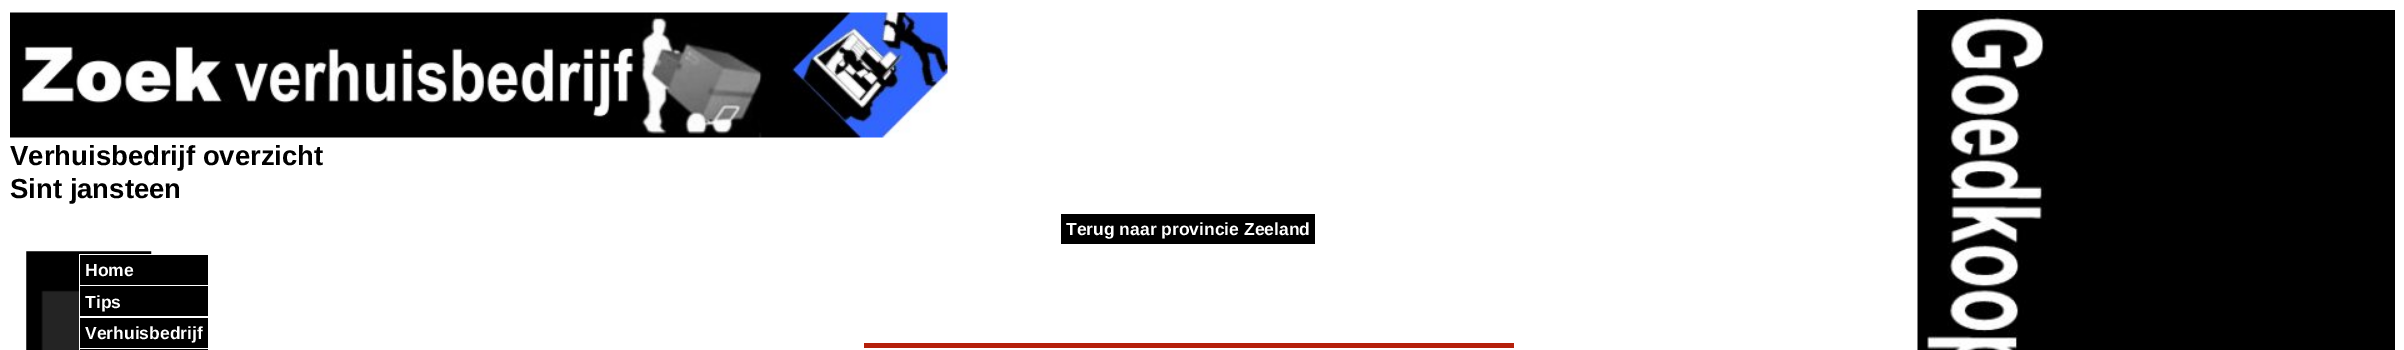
%!PS-Adobe-3.0
%%BoundingBox: 0 0 2404 350
%%LanguageLevel: 3
%%Pages: 1
%%EndComments
%%BeginProlog
/setink { 3 { 255 div 3 1 roll } repeat setrgbcolor } def
/usefont { [ exch dup neg 0 0 3 -1 roll 0 0 ] selectfont } def
/drawtext { setink usefont moveto show } def
/fillbox { setink rectfill } def
/drawimage { 5 dict begin { /h /w /y /x /name } { exch def } forall
  gsave x y translate w h scale
  w h 8 [w 0 0 h 0 0] name (r) file false 3 colorimage grestore end } def
%%EndProlog
%%BeginSetup
<< /PageSize [2404 350] >> setpagedevice
%%EndSetup
%%Page: 1 1
0 350 translate 1 -1 scale
4 setmiterlimit
0 0 2404 350 255 255 255 fillbox
(assets/img1.rgb) 10 12 938 126 drawimage
2047 10 348 340 0 0 0 fillbox
(assets/img2.rgb) 1917 10 130 340 drawimage
(Verhuisbedrijf overzicht) 10 165 /LiberationSans-Bold 27.5 0 0 0 drawtext
(Sint jansteen) 10 198 /LiberationSans-Bold 27.5 0 0 0 drawtext
1061 214 254 30 0 0 0 fillbox
(Terug naar provincie Zeeland) 1066 235 /LiberationSans-Bold 17.5 255 255 255 drawtext
864 343 650 5 181 32 11 fillbox
(assets/img3.rgb) 26 251 126 99 drawimage
79 254 73 96 255 255 255 fillbox
80 255 128 30 0 0 0 fillbox
(Home) 85 276 /LiberationSans-Bold 17.5 255 255 255 drawtext
80 286 128 30 0 0 0 fillbox
(Tips) 85 308 /LiberationSans-Bold 17.5 255 255 255 drawtext
80 318 128 30 0 0 0 fillbox
(Verhuisbedrijf) 85 339 /LiberationSans-Bold 17.5 255 255 255 drawtext
80 349 128 1 0 0 0 fillbox
showpage
%%EOF
